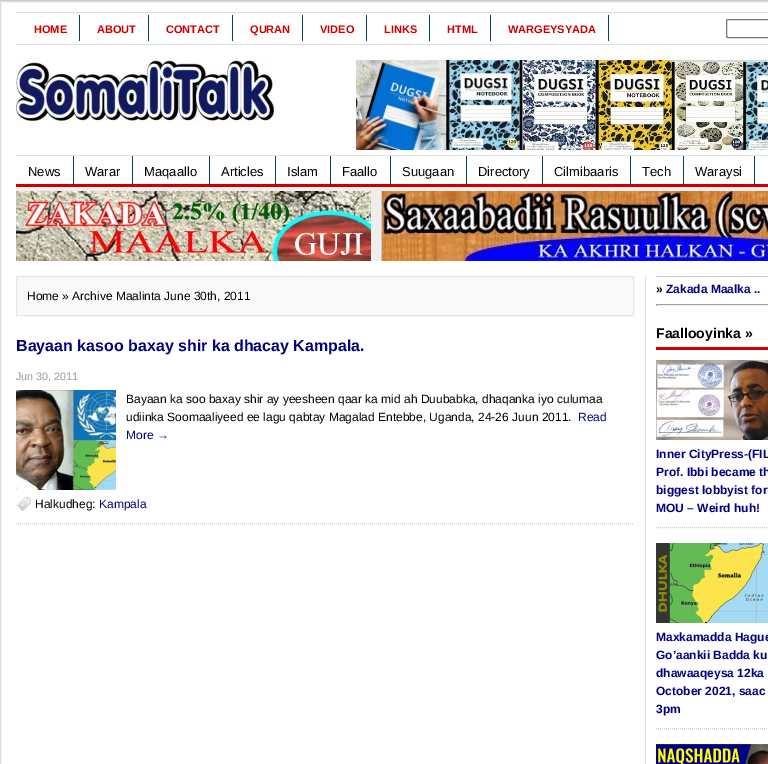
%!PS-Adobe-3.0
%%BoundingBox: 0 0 768 764
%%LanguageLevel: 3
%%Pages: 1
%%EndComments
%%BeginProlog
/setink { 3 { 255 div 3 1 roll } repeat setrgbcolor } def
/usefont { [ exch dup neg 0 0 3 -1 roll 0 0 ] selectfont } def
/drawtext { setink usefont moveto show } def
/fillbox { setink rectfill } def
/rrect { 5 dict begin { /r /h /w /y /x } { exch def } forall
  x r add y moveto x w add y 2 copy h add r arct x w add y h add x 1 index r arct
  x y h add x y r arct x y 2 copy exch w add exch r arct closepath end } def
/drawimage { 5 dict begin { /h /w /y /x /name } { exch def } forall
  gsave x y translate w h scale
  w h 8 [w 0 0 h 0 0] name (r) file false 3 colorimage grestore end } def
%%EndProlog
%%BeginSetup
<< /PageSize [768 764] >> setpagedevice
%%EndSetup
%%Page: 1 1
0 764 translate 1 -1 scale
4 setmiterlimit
0 0 768 764 204 204 204 fillbox
255 255 255 setink
0.5 1.5 moveto 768.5 1.5 lineto 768.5 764.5 lineto 0.5 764.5 lineto closepath gsave fill grestore
221 221 221 setink
stroke
16 12 752 1 224 224 224 fillbox
16 44 752 1 224 224 224 fillbox
79 15 1 26 0 68 85 fillbox
(HOME) 34 33 /LiberationSans-Bold 11 204 0 0 drawtext
148 15 1 26 0 68 85 fillbox
(ABOUT) 97 33 /LiberationSans-Bold 11 204 0 0 drawtext
232 15 1 26 0 68 85 fillbox
(CONTACT) 166 33 /LiberationSans-Bold 11 204 0 0 drawtext
302 15 1 26 0 68 85 fillbox
(QURAN) 250 33 /LiberationSans-Bold 11 204 0 0 drawtext
366 15 1 26 0 68 85 fillbox
(VIDEO) 320 33 /LiberationSans-Bold 11 204 0 0 drawtext
429 15 1 26 0 68 85 fillbox
(LINKS) 384 33 /LiberationSans-Bold 11 204 0 0 drawtext
490 15 1 26 0 68 85 fillbox
(HTML) 447 33 /LiberationSans-Bold 11 204 0 0 drawtext
608 15 1 26 0 68 85 fillbox
(WARGEYSYADA) 508 33 /LiberationSans-Bold 11 204 0 0 drawtext
118 118 118 setink
726.5 19.5 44 18 1.5 rrect stroke
(assets/img1.rgb) 16 60 260 64 drawimage
(assets/img2.rgb) 356 60 412 90 drawimage
16 155 752 1 224 224 224 fillbox
16 184 752 3 204 0 0 fillbox
73 156 1 29 0 68 85 fillbox
(News) 28 176 /LiberationSans-Regular 13 0 0 0 drawtext
132 156 1 29 0 68 85 fillbox
(Warar) 85 176 /LiberationSans-Regular 13 0 0 0 drawtext
209 156 1 29 0 68 85 fillbox
(Maqaallo) 144 176 /LiberationSans-Regular 13 0 0 0 drawtext
275 156 1 29 0 68 85 fillbox
(Articles) 221 176 /LiberationSans-Regular 13 0 0 0 drawtext
330 156 1 29 0 68 85 fillbox
(Islam) 287 176 /LiberationSans-Regular 13 0 0 0 drawtext
390 156 1 29 0 68 85 fillbox
(Faallo) 342 176 /LiberationSans-Regular 13 0 0 0 drawtext
466 156 1 29 0 68 85 fillbox
(Suugaan) 402 176 /LiberationSans-Regular 13 0 0 0 drawtext
542 156 1 29 0 68 85 fillbox
(Directory) 478 176 /LiberationSans-Regular 13 0 0 0 drawtext
630 156 1 29 0 68 85 fillbox
(Cilmibaaris) 554 176 /LiberationSans-Regular 13 0 0 0 drawtext
683 156 1 29 0 68 85 fillbox
(Tech) 642 176 /LiberationSans-Regular 13 0 0 0 drawtext
754 156 1 29 0 68 85 fillbox
(Waraysi) 695 176 /LiberationSans-Regular 13 0 0 0 drawtext
16 187 752 4 238 238 238 fillbox
371 191 10 70 238 238 238 fillbox
(assets/img3.rgb) 16 191 355 70 drawimage
381 191 1 70 204 204 204 fillbox
(assets/img4.rgb) 382 191 386 70 drawimage
249 249 249 setink
16.5 276.5 moveto 633.5 276.5 lineto 633.5 315.5 lineto 16.5 315.5 lineto closepath gsave fill grestore
230 230 230 setink
stroke
(Home » Archive Maalinta June 30th, 2011) 27 300 /LiberationSans-Regular 12 0 0 0 drawtext
204 204 204 setink
[1 1] 0 setdash
16 523.5 moveto 634 523.5 lineto stroke
(Bayaan kasoo baxay shir ka dhacay Kampala.) 16 351 /LiberationSans-Bold 16 0 0 128 drawtext
(Jun 30, 2011) 16 380 /LiberationSans-Regular 10.75 153 153 153 drawtext
(assets/img5.rgb) 16 390 100 100 drawimage
(Bayaan ka soo baxay shir ay yeesheen qaar ka mid ah Duubabka, dhaqanka iyo culumaa) 126 403 /LiberationSans-Regular 12 0 0 0 drawtext
(udiinka Soomaaliyeed ee lagu qabtay Magalad Entebbe, Uganda, 24‐26 Juun 2011.) 126 421 /LiberationSans-Regular 12 0 0 0 drawtext
(Read) 578 421 /LiberationSans-Regular 12 0 0 128 drawtext
(More →) 126 439 /LiberationSans-Regular 12 0 0 128 drawtext
(assets/img6.rgb) 16 497 15 14 drawimage
(Halkudheg:) 35 508 /LiberationSans-Regular 12 0 0 0 drawtext
(Kampala) 99 508 /LiberationSans-Regular 12 0 0 128 drawtext
645 276 1 488 224 224 224 fillbox
656 276 112 1 204 204 204 fillbox
(») 656 293 /LiberationSans-Bold 12 0 0 0 drawtext
(Zakada Maalka ..) 666 293 /LiberationSans-Bold 12 0 0 128 drawtext
656 304 112 1 159 159 159 fillbox
656 305 112 1 238 238 238 fillbox
656 304 1 2 159 159 159 fillbox
656 347 112 3 204 0 0 fillbox
(Faallooyinka ») 656 338 /LiberationSans-Bold 14 0 0 0 drawtext
(assets/img7.rgb) 656 360 112 80 drawimage
204 204 204 setink
656 527.5 moveto 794 527.5 lineto stroke
(Inner CityPress-\(FIL) 656 458 /LiberationSans-Bold 12 0 0 128 drawtext
(Prof. Ibbi became th) 656 476 /LiberationSans-Bold 12 0 0 128 drawtext
(biggest lobbyist for) 656 494 /LiberationSans-Bold 12 0 0 128 drawtext
(MOU – Weird huh!) 656 512 /LiberationSans-Bold 12 0 0 128 drawtext
(assets/img8.rgb) 656 543 112 80 drawimage
204 204 204 setink
656 728.5 moveto 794 728.5 lineto stroke
(Maxkamadda Hague) 656 641 /LiberationSans-Bold 12 0 0 128 drawtext
(Go’aankii Badda ku) 656 659 /LiberationSans-Bold 12 0 0 128 drawtext
(dhawaaqeysa 12ka) 656 677 /LiberationSans-Bold 12 0 0 128 drawtext
(October 2021, saac) 656 695 /LiberationSans-Bold 12 0 0 128 drawtext
(3pm) 656 713 /LiberationSans-Bold 12 0 0 128 drawtext
(assets/img9.rgb) 656 744 112 20 drawimage
showpage
%%EOF
